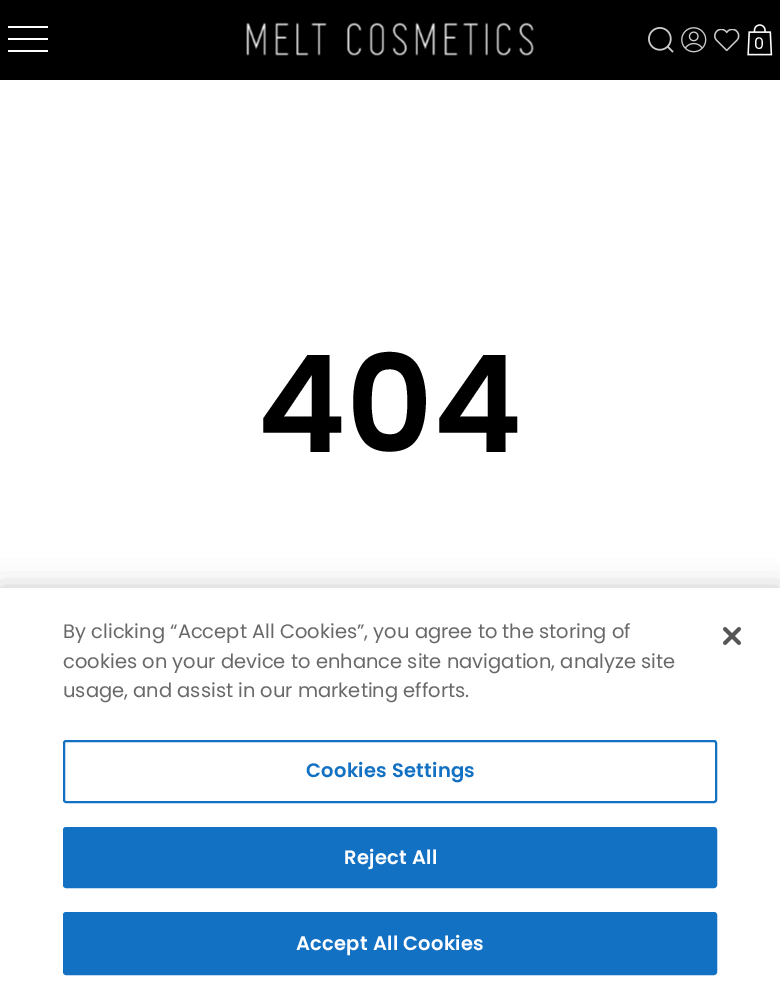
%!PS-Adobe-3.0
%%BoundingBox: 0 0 780 999
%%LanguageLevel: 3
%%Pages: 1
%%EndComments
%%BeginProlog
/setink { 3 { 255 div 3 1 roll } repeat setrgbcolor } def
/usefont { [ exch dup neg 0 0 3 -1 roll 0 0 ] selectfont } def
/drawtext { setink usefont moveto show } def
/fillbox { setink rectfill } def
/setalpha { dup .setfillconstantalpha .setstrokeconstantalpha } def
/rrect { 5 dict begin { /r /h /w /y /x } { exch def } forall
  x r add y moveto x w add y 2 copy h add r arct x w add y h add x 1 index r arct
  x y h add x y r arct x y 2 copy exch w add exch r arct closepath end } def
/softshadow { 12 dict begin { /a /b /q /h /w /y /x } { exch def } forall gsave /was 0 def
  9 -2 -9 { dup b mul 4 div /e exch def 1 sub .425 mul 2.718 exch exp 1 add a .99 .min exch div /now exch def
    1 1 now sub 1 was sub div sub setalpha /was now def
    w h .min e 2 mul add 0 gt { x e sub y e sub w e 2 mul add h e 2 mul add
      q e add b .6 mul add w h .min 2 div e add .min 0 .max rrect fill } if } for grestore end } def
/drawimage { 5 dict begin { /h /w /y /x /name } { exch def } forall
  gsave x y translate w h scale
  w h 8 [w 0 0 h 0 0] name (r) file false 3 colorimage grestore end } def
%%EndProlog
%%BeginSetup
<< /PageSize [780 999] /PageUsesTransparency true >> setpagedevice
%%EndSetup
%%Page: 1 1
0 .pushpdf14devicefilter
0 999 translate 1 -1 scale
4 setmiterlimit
0 0 780 999 255 255 255 fillbox
0 0 780 80 0 0 0 fillbox
8 26 40 2 255 255 255 fillbox
8 38 40 2 255 255 255 fillbox
8 50 40 2 255 255 255 fillbox
(assets/img1.rgb) 246 22 288 34 drawimage
(assets/img2.rgb) 648 27 26 26 drawimage
(assets/img3.rgb) 681 27 26 26 drawimage
(assets/img4.rgb) 714 29 26 22 drawimage
(assets/img5.rgb) 747 24 26 32 drawimage
(0) 754 49 /Poppins-Regular 16 255 255 255 drawtext
(404) 257 452 /Poppins-SemiBold 135 0 0 0 drawtext
0 588 780 411 0 13.5 0.2 softshadow
0 588 780 411 255 255 255 fillbox
(By clicking “Accept All Cookies”, you agree to the storing of) 63 638 /Poppins-Regular 19.5 105 105 105 drawtext
(cookies on your device to enhance site navigation, analyze site) 63 668 /Poppins-Regular 19.5 105 105 105 drawtext
(usage, and assist in our marketing efforts.) 63 697 /Poppins-Regular 19.5 105 105 105 drawtext
19 113 195 setink
2 setlinewidth
64 741 652 61 2 rrect stroke
/Poppins-SemiBold 19.5 usefont
306 777 moveto 0.25 0 (Cookies Settings) ashow
64 828 652 59 2 rrect gsave fill grestore
stroke
255 255 255 setink
344 864 moveto 0.25 0 (Reject All) ashow
19 113 195 setink
64 913 652 61 2 rrect gsave fill grestore
stroke
255 255 255 setink
296 950 moveto 0.25 0 (Accept All Cookies) ashow
(assets/img6.rgb) 723 627 18 18 drawimage
.poppdf14devicefilter showpage
%%EOF
